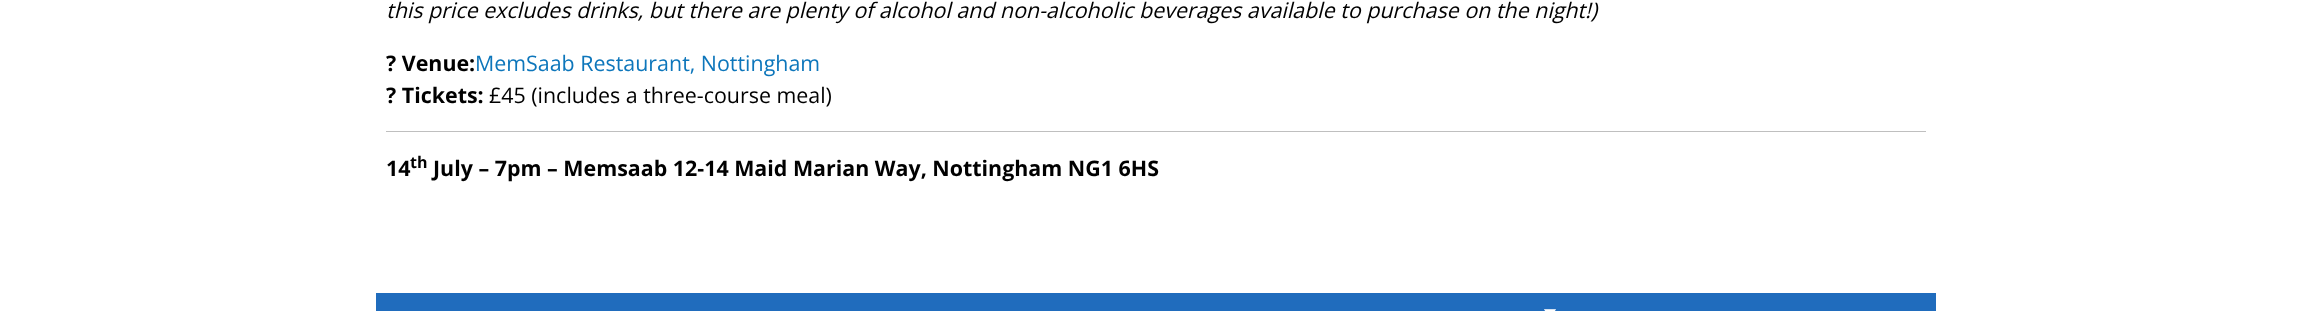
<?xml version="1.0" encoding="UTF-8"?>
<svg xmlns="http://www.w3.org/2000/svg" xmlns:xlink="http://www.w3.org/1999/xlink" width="2311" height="311">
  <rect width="100%" height="100%" fill="#ffffff" />
  <rect x="386" y="131" width="1540" height="1" fill="#bfbfbf" />
  <rect x="376" y="293" width="1560" height="18" fill="#206cbd" />
  <image x="1544" y="309" width="12" height="2" xlink:href="image1.png" />
  <text x="386" y="18" style="font-family: Open Sans; font-size: 21.42px; font-style: italic; fill: #000000">this price excludes drinks, but there are plenty of alcohol and non-alcoholic beverages available to purchase on the night!)</text>
  <text x="386" y="71" style="font-family: Open Sans; font-size: 21.42px; font-weight: bold; fill: #000000">? Venue:</text>
  <text x="475" y="71" style="font-family: Open Sans; font-size: 21.42px; fill: #0d76bb">MemSaab Restaurant, Nottingham</text>
  <text x="386" y="103" style="font-family: Open Sans; font-size: 21.42px; font-weight: bold; fill: #000000">?️ Tickets:</text>
  <text x="489" y="103" style="font-family: Open Sans; font-size: 21.42px; fill: #000000">£45 (includes a three-course meal)</text>
  <text x="386" y="176" style="font-family: Open Sans; font-size: 21.42px; font-weight: bold; fill: #000000">14</text>
  <text x="410" y="168" style="font-family: Open Sans; font-size: 16px; font-weight: bold; fill: #000000">th</text>
  <text x="433" y="176" style="font-family: Open Sans; font-size: 21.42px; font-weight: bold; fill: #000000">July – 7pm – Memsaab 12-14 Maid Marian Way, Nottingham NG1 6HS</text>
</svg>
